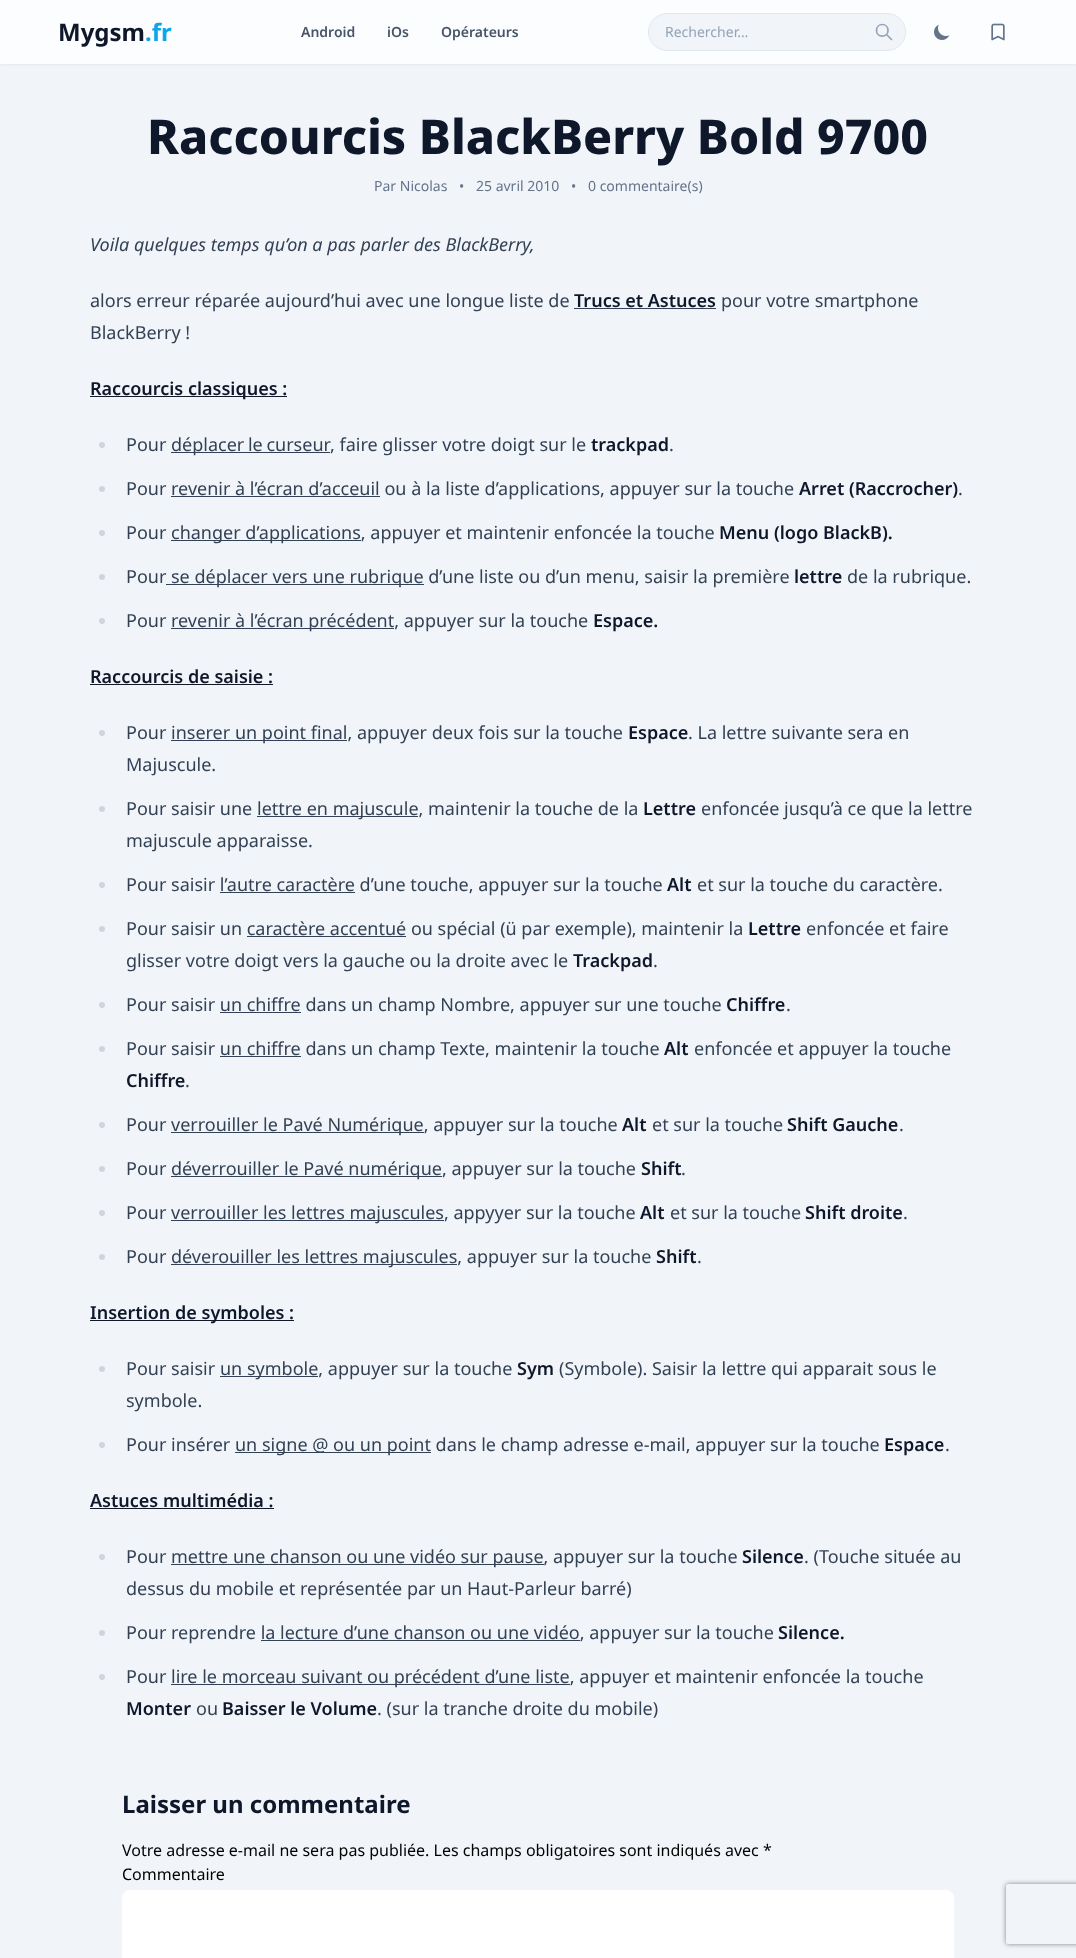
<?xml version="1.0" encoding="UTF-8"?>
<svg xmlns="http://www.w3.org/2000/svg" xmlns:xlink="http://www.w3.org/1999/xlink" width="1076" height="1958">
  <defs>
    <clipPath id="clip1"><path d="M 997 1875 h 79 v 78 h -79 z m 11 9 h 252 c 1 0 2 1 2 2 v 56 c 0 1 -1 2 -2 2 h -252 c -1 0 -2 -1 -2 -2 v -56 c 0 -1 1 -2 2 -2 z" clip-rule="evenodd" /></clipPath>
  </defs>
  <rect width="100%" height="100%" fill="#f1f5f9" />
  <rect y="1" width="1076" height="64" fill="#000000" fill-opacity="0.05" filter="blur(1px)" />
  <rect width="1076" height="64" fill="#fcfdfe" />
  <rect x="648.5" y="13.5" width="257" height="37" rx="18.5" fill="#f1f5f9" stroke="#e2e8f0" />
  <path d="M 891.5 39.5 l -5 -5 m 1.5 -4 c 0 7.5 -11.5 7.5 -11.5 0 c 0 -8 11.5 -8 11.5 0 z" fill="none" stroke="#94a3b8" stroke-width="1.7" stroke-linecap="round" stroke-linejoin="round" />
  <image x="934" y="24" width="16" height="16" xlink:href="image1.png" />
  <image x="991" y="23" width="14" height="18" xlink:href="image2.png" />
  <rect x="574" y="308" width="142" height="1" fill="#334155" />
  <rect x="90" y="396" width="197" height="1" fill="#111827" />
  <circle cx="102" cy="445" r="3" fill="#d1d5db" />
  <rect x="171" y="452" width="159" height="1" fill="#334155" />
  <circle cx="102" cy="489" r="3" fill="#d1d5db" />
  <rect x="171" y="496" width="209" height="1" fill="#334155" />
  <circle cx="102" cy="533" r="3" fill="#d1d5db" />
  <rect x="171" y="540" width="190" height="1" fill="#334155" />
  <circle cx="102" cy="577" r="3" fill="#d1d5db" />
  <rect x="166" y="584" width="258" height="1" fill="#334155" />
  <circle cx="102" cy="621" r="3" fill="#d1d5db" />
  <rect x="171" y="628" width="223" height="1" fill="#334155" />
  <rect x="90" y="684" width="183" height="1" fill="#111827" />
  <circle cx="102" cy="733" r="3" fill="#d1d5db" />
  <rect x="171" y="740" width="176" height="1" fill="#334155" />
  <circle cx="102" cy="809" r="3" fill="#d1d5db" />
  <rect x="257" y="816" width="161" height="1" fill="#334155" />
  <circle cx="102" cy="885" r="3" fill="#d1d5db" />
  <rect x="220" y="892" width="135" height="1" fill="#334155" />
  <circle cx="102" cy="929" r="3" fill="#d1d5db" />
  <rect x="247" y="936" width="159" height="1" fill="#334155" />
  <circle cx="102" cy="1005" r="3" fill="#d1d5db" />
  <rect x="220" y="1012" width="81" height="1" fill="#334155" />
  <circle cx="102" cy="1049" r="3" fill="#d1d5db" />
  <rect x="220" y="1056" width="81" height="1" fill="#334155" />
  <circle cx="102" cy="1125" r="3" fill="#d1d5db" />
  <rect x="171" y="1132" width="253" height="1" fill="#334155" />
  <circle cx="102" cy="1169" r="3" fill="#d1d5db" />
  <rect x="171" y="1176" width="271" height="1" fill="#334155" />
  <circle cx="102" cy="1213" r="3" fill="#d1d5db" />
  <rect x="171" y="1220" width="273" height="1" fill="#334155" />
  <circle cx="102" cy="1257" r="3" fill="#d1d5db" />
  <rect x="171" y="1264" width="286" height="1" fill="#334155" />
  <rect x="90" y="1320" width="204" height="1" fill="#111827" />
  <circle cx="102" cy="1369" r="3" fill="#d1d5db" />
  <rect x="220" y="1376" width="98" height="1" fill="#334155" />
  <circle cx="102" cy="1445" r="3" fill="#d1d5db" />
  <rect x="235" y="1452" width="196" height="1" fill="#334155" />
  <rect x="90" y="1508" width="184" height="1" fill="#111827" />
  <circle cx="102" cy="1557" r="3" fill="#d1d5db" />
  <rect x="171" y="1564" width="373" height="1" fill="#334155" />
  <circle cx="102" cy="1633" r="3" fill="#d1d5db" />
  <rect x="261" y="1640" width="319" height="1" fill="#334155" />
  <circle cx="102" cy="1677" r="3" fill="#d1d5db" />
  <rect x="171" y="1684" width="399" height="1" fill="#334155" />
  <rect x="122" y="1890" width="832" height="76" rx="8" fill="#ffffff" />
  <g clip-path="url(#clip1)">
    <rect x="1006" y="1884" width="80" height="60" rx="2" fill="#808080" filter="blur(2.5px)" />
  </g>
  <text x="58" y="41" style="font-family: Noto Sans; font-size: 24px; font-weight: bold; fill: #0f172a">Mygsm</text>
  <text x="145" y="41" style="font-family: Noto Sans; font-size: 24px; font-weight: bold; fill: #0ea5e9">.fr</text>
  <text x="301" y="37" style="font-family: Noto Sans; font-size: 14px; font-weight: 600; fill: #475569">Android</text>
  <text x="387" y="37" style="font-family: Noto Sans; font-size: 14px; font-weight: 600; fill: #475569">iOs</text>
  <text x="441" y="37" style="font-family: Noto Sans; font-size: 14px; font-weight: 600; fill: #475569">Opérateurs</text>
  <text x="665" y="37" style="font-family: Noto Sans; font-size: 14px; fill: #94a3b8">Rechercher…</text>
  <text x="147" y="154" style="font-family: Noto Sans; font-size: 48px; font-weight: 800; fill: #0f172a">Raccourcis BlackBerry Bold 9700</text>
  <text x="374" y="191" style="font-family: Noto Sans; font-size: 14px; fill: #64748b">Par Nicolas</text>
  <text x="459" y="191" style="font-family: Noto Sans; font-size: 14px; fill: #64748b">•</text>
  <text x="476" y="191" style="font-family: Noto Sans; font-size: 14px; fill: #64748b">25 avril 2010</text>
  <text x="571" y="191" style="font-family: Noto Sans; font-size: 14px; fill: #64748b">•</text>
  <text x="588" y="191" style="font-family: Noto Sans; font-size: 14px; fill: #64748b">0 commentaire(s)</text>
  <text x="90" y="251" style="font-family: Noto Sans; font-size: 18px; font-style: italic; fill: #334155">Voila quelques temps qu’on a pas parler des BlackBerry,</text>
  <text x="90" y="307" style="font-family: Noto Sans; font-size: 18px; fill: #334155">alors erreur réparée aujourd’hui avec une longue liste de</text>
  <text x="574" y="307" style="font-family: Noto Sans; font-size: 18px; font-weight: 600; fill: #0f172a">Trucs et Astuces</text>
  <text x="721" y="307" style="font-family: Noto Sans; font-size: 18px; fill: #334155">pour votre smartphone</text>
  <text x="90" y="339" style="font-family: Noto Sans; font-size: 18px; fill: #334155">BlackBerry !</text>
  <text x="90" y="395" style="font-family: Noto Sans; font-size: 18px; font-weight: 600; fill: #0f172a">Raccourcis classiques :</text>
  <text x="126" y="451" style="font-family: Noto Sans; font-size: 18px; fill: #334155">Pour</text>
  <text x="171" y="451" word-spacing="-1" style="font-family: Noto Sans; font-size: 18px; fill: #334155">déplacer le curseur</text>
  <text x="330" y="451" style="font-family: Noto Sans; font-size: 18px; fill: #334155">, faire glisser votre doigt sur le</text>
  <text x="591" y="451" style="font-family: Noto Sans; font-size: 18px; font-weight: 600; fill: #0f172a">trackpad</text>
  <text x="669" y="451" style="font-family: Noto Sans; font-size: 18px; fill: #334155">.</text>
  <text x="126" y="495" style="font-family: Noto Sans; font-size: 18px; fill: #334155">Pour revenir à l’écran d’acceuil ou à la liste d’applications, appuyer sur la touche</text>
  <text x="799" y="495" style="font-family: Noto Sans; font-size: 18px; font-weight: 600; fill: #0f172a">Arret (Raccrocher)</text>
  <text x="958" y="495" style="font-family: Noto Sans; font-size: 18px; fill: #334155">.</text>
  <text x="126" y="539" style="font-family: Noto Sans; font-size: 18px; fill: #334155">Pour</text>
  <text x="171" y="539" style="font-family: Noto Sans; font-size: 18px; fill: #334155">changer d’applications, appuyer et maintenir enfoncée la touche</text>
  <text x="719" y="539" style="font-family: Noto Sans; font-size: 18px; font-weight: 600; fill: #0f172a">Menu (logo BlackB).</text>
  <text x="126" y="583" style="font-family: Noto Sans; font-size: 18px; fill: #334155">Pour</text>
  <text x="171" y="583" style="font-family: Noto Sans; font-size: 18px; fill: #334155">se déplacer vers une rubrique d’une liste ou d’un menu, saisir la première</text>
  <text x="794" y="583" style="font-family: Noto Sans; font-size: 18px; font-weight: 600; fill: #0f172a">lettre</text>
  <text x="847" y="583" style="font-family: Noto Sans; font-size: 18px; fill: #334155">de la rubrique.</text>
  <text x="126" y="627" style="font-family: Noto Sans; font-size: 18px; fill: #334155">Pour</text>
  <text x="171" y="627" style="font-family: Noto Sans; font-size: 18px; fill: #334155">revenir à l’écran précédent, appuyer sur la touche</text>
  <text x="593" y="627" style="font-family: Noto Sans; font-size: 18px; font-weight: 600; fill: #0f172a">Espace.</text>
  <text x="90" y="683" style="font-family: Noto Sans; font-size: 18px; font-weight: 600; fill: #0f172a">Raccourcis de saisie :</text>
  <text x="126" y="739" style="font-family: Noto Sans; font-size: 18px; fill: #334155">Pour</text>
  <text x="171" y="739" style="font-family: Noto Sans; font-size: 18px; fill: #334155">inserer un point final, appuyer deux fois sur la touche</text>
  <text x="628" y="739" style="font-family: Noto Sans; font-size: 18px; font-weight: 600; fill: #0f172a">Espace</text>
  <text x="688" y="739" style="font-family: Noto Sans; font-size: 18px; fill: #334155">. La lettre suivante sera en</text>
  <text x="126" y="771" style="font-family: Noto Sans; font-size: 18px; fill: #334155">Majuscule.</text>
  <text x="126" y="815" style="font-family: Noto Sans; font-size: 18px; fill: #334155">Pour saisir une</text>
  <text x="257" y="815" style="font-family: Noto Sans; font-size: 18px; fill: #334155">lettre en majuscule, maintenir la touche de la</text>
  <text x="643" y="815" style="font-family: Noto Sans; font-size: 18px; font-weight: 600; fill: #0f172a">Lettre</text>
  <text x="701" y="815" style="font-family: Noto Sans; font-size: 18px; fill: #334155">enfoncée jusqu’à ce que la lettre</text>
  <text x="126" y="847" style="font-family: Noto Sans; font-size: 18px; fill: #334155">majuscule apparaisse.</text>
  <text x="126" y="891" style="font-family: Noto Sans; font-size: 18px; fill: #334155">Pour saisir l’autre caractère d’une touche, appuyer sur la touche</text>
  <text x="667" y="891" style="font-family: Noto Sans; font-size: 18px; font-weight: 600; fill: #0f172a">Alt</text>
  <text x="697" y="891" style="font-family: Noto Sans; font-size: 18px; fill: #334155">et sur la touche du caractère.</text>
  <text x="126" y="935" style="font-family: Noto Sans; font-size: 18px; fill: #334155">Pour saisir un caractère accentué ou spécial (ü par exemple), maintenir la</text>
  <text x="748" y="935" style="font-family: Noto Sans; font-size: 18px; font-weight: 600; fill: #0f172a">Lettre</text>
  <text x="806" y="935" style="font-family: Noto Sans; font-size: 18px; fill: #334155">enfoncée et faire</text>
  <text x="126" y="967" style="font-family: Noto Sans; font-size: 18px; fill: #334155">glisser votre doigt vers la gauche ou la droite avec le</text>
  <text x="573" y="967" style="font-family: Noto Sans; font-size: 18px; font-weight: 600; fill: #0f172a">Trackpad</text>
  <text x="653" y="967" style="font-family: Noto Sans; font-size: 18px; fill: #334155">.</text>
  <text x="126" y="1011" style="font-family: Noto Sans; font-size: 18px; fill: #334155">Pour saisir un chiffre dans un champ Nombre, appuyer sur une touche</text>
  <text x="726" y="1011" style="font-family: Noto Sans; font-size: 18px; font-weight: 600; fill: #0f172a">Chiffre</text>
  <text x="786" y="1011" style="font-family: Noto Sans; font-size: 18px; fill: #334155">.</text>
  <text x="126" y="1055" style="font-family: Noto Sans; font-size: 18px; fill: #334155">Pour saisir un chiffre dans un champ Texte, maintenir la touche</text>
  <text x="664" y="1055" style="font-family: Noto Sans; font-size: 18px; font-weight: 600; fill: #0f172a">Alt</text>
  <text x="694" y="1055" style="font-family: Noto Sans; font-size: 18px; fill: #334155">enfoncée et appuyer la touche</text>
  <text x="126" y="1087" style="font-family: Noto Sans; font-size: 18px; font-weight: 600; fill: #0f172a">Chiffre</text>
  <text x="185" y="1087" style="font-family: Noto Sans; font-size: 18px; fill: #334155">.</text>
  <text x="126" y="1131" style="font-family: Noto Sans; font-size: 18px; fill: #334155">Pour</text>
  <text x="171" y="1131" style="font-family: Noto Sans; font-size: 18px; fill: #334155">verrouiller le Pavé Numérique, appuyer sur la touche</text>
  <text x="622" y="1131" style="font-family: Noto Sans; font-size: 18px; font-weight: 600; fill: #0f172a">Alt</text>
  <text x="652" y="1131" style="font-family: Noto Sans; font-size: 18px; fill: #334155">et sur la touche</text>
  <text x="787" y="1131" style="font-family: Noto Sans; font-size: 18px; font-weight: 600; fill: #0f172a">Shift Gauche</text>
  <text x="899" y="1131" style="font-family: Noto Sans; font-size: 18px; fill: #334155">.</text>
  <text x="126" y="1175" style="font-family: Noto Sans; font-size: 18px; fill: #334155">Pour</text>
  <text x="171" y="1175" style="font-family: Noto Sans; font-size: 18px; fill: #334155">déverrouiller le Pavé numérique, appuyer sur la touche</text>
  <text x="641" y="1175" style="font-family: Noto Sans; font-size: 18px; font-weight: 600; fill: #0f172a">Shift</text>
  <text x="681" y="1175" style="font-family: Noto Sans; font-size: 18px; fill: #334155">.</text>
  <text x="126" y="1219" style="font-family: Noto Sans; font-size: 18px; fill: #334155">Pour</text>
  <text x="171" y="1219" style="font-family: Noto Sans; font-size: 18px; fill: #334155">verrouiller les lettres majuscules, appyyer sur la touche</text>
  <text x="640" y="1219" style="font-family: Noto Sans; font-size: 18px; font-weight: 600; fill: #0f172a">Alt</text>
  <text x="670" y="1219" style="font-family: Noto Sans; font-size: 18px; fill: #334155">et sur la touche</text>
  <text x="805" y="1219" style="font-family: Noto Sans; font-size: 18px; font-weight: 600; fill: #0f172a">Shift droite</text>
  <text x="903" y="1219" style="font-family: Noto Sans; font-size: 18px; fill: #334155">.</text>
  <text x="126" y="1263" style="font-family: Noto Sans; font-size: 18px; fill: #334155">Pour</text>
  <text x="171" y="1263" style="font-family: Noto Sans; font-size: 18px; fill: #334155">déverouiller les lettres majuscules, appuyer sur la touche</text>
  <text x="656" y="1263" style="font-family: Noto Sans; font-size: 18px; font-weight: 600; fill: #0f172a">Shift</text>
  <text x="697" y="1263" style="font-family: Noto Sans; font-size: 18px; fill: #334155">.</text>
  <text x="90" y="1319" style="font-family: Noto Sans; font-size: 18px; font-weight: 600; fill: #0f172a">Insertion de symboles :</text>
  <text x="126" y="1375" style="font-family: Noto Sans; font-size: 18px; fill: #334155">Pour saisir</text>
  <text x="220" y="1375" style="font-family: Noto Sans; font-size: 18px; fill: #334155">un symbole, appuyer sur la touche</text>
  <text x="517" y="1375" style="font-family: Noto Sans; font-size: 18px; font-weight: 600; fill: #0f172a">Sym</text>
  <text x="559" y="1375" style="font-family: Noto Sans; font-size: 18px; fill: #334155">(Symbole). Saisir la lettre qui apparait sous le</text>
  <text x="126" y="1407" style="font-family: Noto Sans; font-size: 18px; fill: #334155">symbole.</text>
  <text x="126" y="1451" style="font-family: Noto Sans; font-size: 18px; fill: #334155">Pour insérer</text>
  <text x="235" y="1451" style="font-family: Noto Sans; font-size: 18px; fill: #334155">un signe @ ou un point dans le champ adresse e-mail, appuyer sur la touche</text>
  <text x="884" y="1451" style="font-family: Noto Sans; font-size: 18px; font-weight: 600; fill: #0f172a">Espace</text>
  <text x="945" y="1451" style="font-family: Noto Sans; font-size: 18px; fill: #334155">.</text>
  <text x="90" y="1507" style="font-family: Noto Sans; font-size: 18px; font-weight: 600; fill: #0f172a">Astuces multimédia :</text>
  <text x="126" y="1563" style="font-family: Noto Sans; font-size: 18px; fill: #334155">Pour</text>
  <text x="171" y="1563" style="font-family: Noto Sans; font-size: 18px; fill: #334155">mettre une chanson ou une vidéo sur pause, appuyer sur la touche</text>
  <text x="742" y="1563" style="font-family: Noto Sans; font-size: 18px; font-weight: 600; fill: #0f172a">Silence</text>
  <text x="804" y="1563" style="font-family: Noto Sans; font-size: 18px; fill: #334155">. (Touche située au</text>
  <text x="126" y="1595" style="font-family: Noto Sans; font-size: 18px; fill: #334155">dessus du mobile et représentée par un Haut-Parleur barré)</text>
  <text x="126" y="1639" style="font-family: Noto Sans; font-size: 18px; fill: #334155">Pour reprendre la lecture d’une chanson ou une vidéo, appuyer sur la touche</text>
  <text x="778" y="1639" style="font-family: Noto Sans; font-size: 18px; font-weight: 600; fill: #0f172a">Silence.</text>
  <text x="126" y="1683" style="font-family: Noto Sans; font-size: 18px; fill: #334155">Pour</text>
  <text x="171" y="1683" style="font-family: Noto Sans; font-size: 18px; fill: #334155">lire le morceau suivant ou précédent d’une liste, appuyer et maintenir enfoncée la touche</text>
  <text x="126" y="1715" style="font-family: Noto Sans; font-size: 18px; font-weight: 600; fill: #0f172a">Monter</text>
  <text x="196" y="1715" style="font-family: Noto Sans; font-size: 18px; fill: #334155">ou</text>
  <text x="222" y="1715" style="font-family: Noto Sans; font-size: 18px; font-weight: 600; fill: #0f172a">Baisser le Volume</text>
  <text x="377" y="1715" style="font-family: Noto Sans; font-size: 18px; fill: #334155">. (sur la tranche droite du mobile)</text>
  <text x="122" y="1813" style="font-family: Noto Sans; font-size: 24px; font-weight: bold; fill: #0f172a">Laisser un commentaire</text>
  <text x="122" y="1856" style="font-family: Noto Sans; font-size: 16px; fill: #000000">Votre adresse e-mail ne sera pas publiée. Les champs obligatoires sont indiqués avec *</text>
  <text x="122" y="1880" style="font-family: Noto Sans; font-size: 16px; fill: #000000">Commentaire</text>
</svg>
